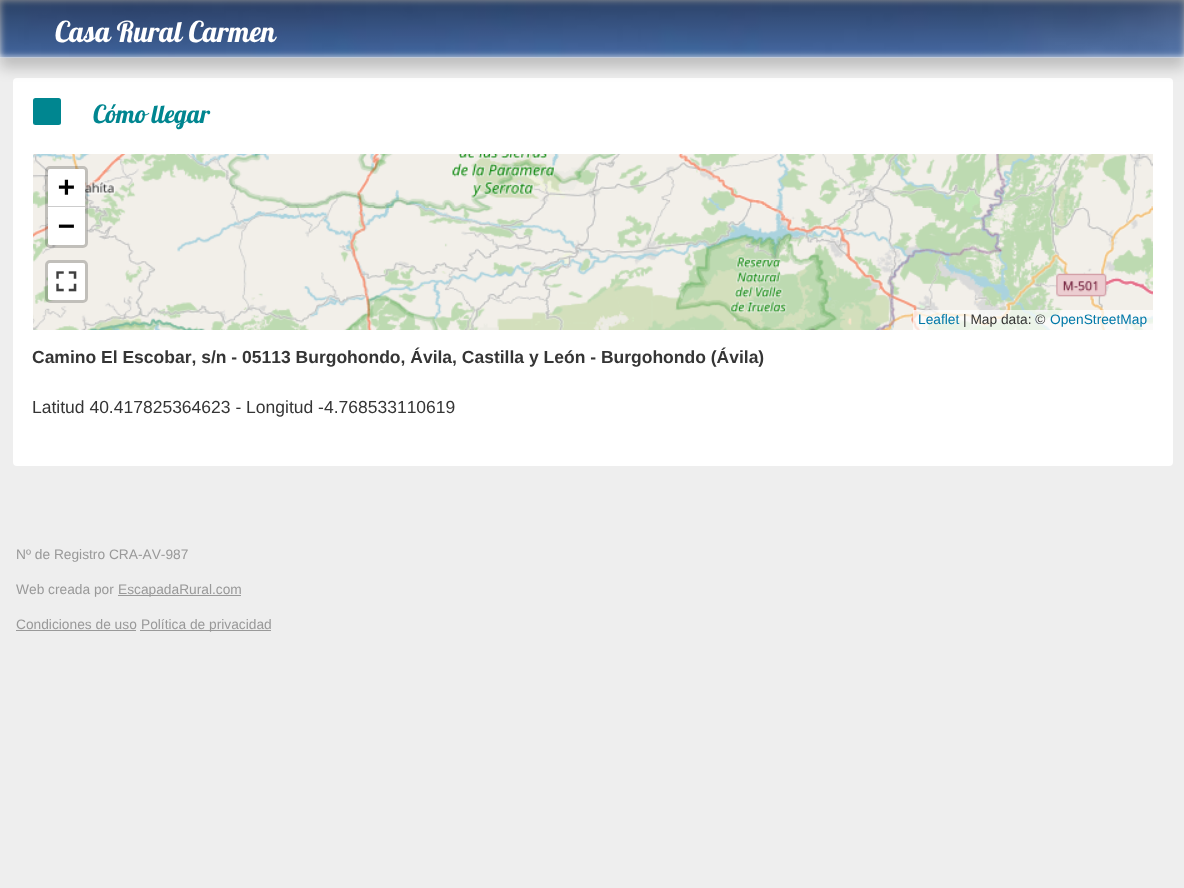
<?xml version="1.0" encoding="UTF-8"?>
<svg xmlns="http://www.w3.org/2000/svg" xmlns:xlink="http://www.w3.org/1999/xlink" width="1184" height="888">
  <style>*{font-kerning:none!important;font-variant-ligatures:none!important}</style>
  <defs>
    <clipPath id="clip1"><path d="M 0 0 h 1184 v 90 h -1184 z m 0 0 h 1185 v 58 h -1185 z" clip-rule="evenodd" /></clipPath>
    <linearGradient id="g1" gradientUnits="userSpaceOnUse" x1="593" y1="0" x2="593" y2="58"><stop offset="0" stop-color="#000000" stop-opacity="0.35" /><stop offset="1" stop-color="#000000" stop-opacity="0" /></linearGradient>
  </defs>
  <rect width="100%" height="100%" fill="#eeeeee" />
  <rect x="13" y="78" width="1160" height="388" rx="4" fill="#ffffff" />
  <g clip-path="url(#clip1)">
    <rect y="10" width="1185" height="58" fill="#000000" fill-opacity="0.2" filter="blur(7px)" />
  </g>
  <image x="0" y="0" width="1184" height="58" xlink:href="image1.png" />
  <rect width="1184" height="54" fill="url(#g1)" />
  <rect x="33" y="98" width="28" height="27" rx="2.5" fill="#008690" />
  <image x="33" y="154" width="101" height="54" xlink:href="image2.png" />
  <image x="134" y="154" width="320" height="54" xlink:href="image3.png" />
  <image x="454" y="154" width="320" height="54" xlink:href="image4.png" />
  <image x="773" y="154" width="321" height="54" xlink:href="image5.png" />
  <image x="1094" y="154" width="59" height="54" xlink:href="image6.png" />
  <image x="33" y="208" width="101" height="122" xlink:href="image7.png" />
  <image x="134" y="208" width="320" height="122" xlink:href="image8.png" />
  <image x="454" y="208" width="320" height="122" xlink:href="image9.png" />
  <image x="773" y="208" width="321" height="122" xlink:href="image10.png" />
  <image x="1093" y="208" width="60" height="122" xlink:href="image11.png" />
  <rect x="46.5" y="167.5" width="40" height="79" rx="3.5" fill="none" stroke="#000000" stroke-opacity="0.2" stroke-width="3" />
  <path d="M 50.5 169 h 32 c 1.5 0 2.5 1 2.5 2.5 v 36.5 h -37 v -36.5 c 0 -1.5 1 -2.5 2.5 -2.5 z" fill="#ffffff" />
  <rect x="48" y="206" width="37" height="1" fill="#cccccc" />
  <path d="M 48 208 h 37 v 34.5 c 0 1.5 -1 2.5 -2.5 2.5 h -32 c -1.5 0 -2.5 -1 -2.5 -2.5 z" fill="#ffffff" />
  <rect x="46.5" y="261.5" width="40" height="40" rx="3.5" fill="none" stroke="#000000" stroke-opacity="0.2" stroke-width="3" />
  <rect x="48" y="263" width="37" height="37" rx="2.5" fill="#ffffff" />
  <image x="56" y="271" width="21" height="21" xlink:href="image12.png" />
  <rect x="913" y="310" width="240" height="20" fill="#ffffff" fill-opacity="0.7" />
  <rect x="118" y="595" width="123" height="1" fill="#999999" />
  <rect x="16" y="630" width="120" height="1" fill="#999999" />
  <rect x="140" y="630" width="131" height="1" fill="#999999" />
  <text x="55" y="42" style="font-family: Lobster; font-size: 28.75px; fill: #ffffff">Casa Rural Carmen</text>
  <text x="93" y="123" style="font-family: Lobster; font-size: 25px; fill: #008690">Cómo llegar</text>
  <text x="58" y="196" style="font-family: DejaVu Sans Mono; font-size: 28px; font-weight: bold; fill: #000000">+</text>
  <text x="58" y="235" style="font-family: DejaVu Sans Mono; font-size: 28px; font-weight: bold; fill: #000000">−</text>
  <text x="918" y="324" style="font-family: Liberation Sans; font-size: 13.75px; fill: #0078a8">Leaflet</text>
  <text x="963" y="324" style="font-family: Liberation Sans; font-size: 13.75px; fill: #353535">| Map data: ©</text>
  <text x="1050" y="324" style="font-family: Liberation Sans; font-size: 13.75px; fill: #0078a8">OpenStreetMap</text>
  <text x="32" y="363" style="font-family: Liberation Sans; font-size: 17.5px; font-weight: bold; fill: #353535">Camino El Escobar, s/n - 05113 Burgohondo, Ávila, Castilla y León - Burgohondo (Ávila)</text>
  <text x="32" y="413" style="font-family: Liberation Sans; font-size: 17.5px; fill: #353535">Latitud 40.417825364623 - Longitud -4.768533110619</text>
  <text x="16" y="559" style="font-family: Liberation Sans; font-size: 13.75px; fill: #999999">Nº de Registro CRA-AV-987</text>
  <text x="16" y="594" style="font-family: Liberation Sans; font-size: 13.75px; fill: #999999">Web creada por</text>
  <text x="118" y="594" style="font-family: Liberation Sans; font-size: 13.75px; fill: #999999">EscapadaRural.com</text>
  <text x="16" y="629" style="font-family: Liberation Sans; font-size: 13.75px; fill: #999999">Condiciones de uso</text>
  <text x="141" y="629" style="font-family: Liberation Sans; font-size: 13.75px; fill: #999999">Política de privacidad</text>
</svg>
